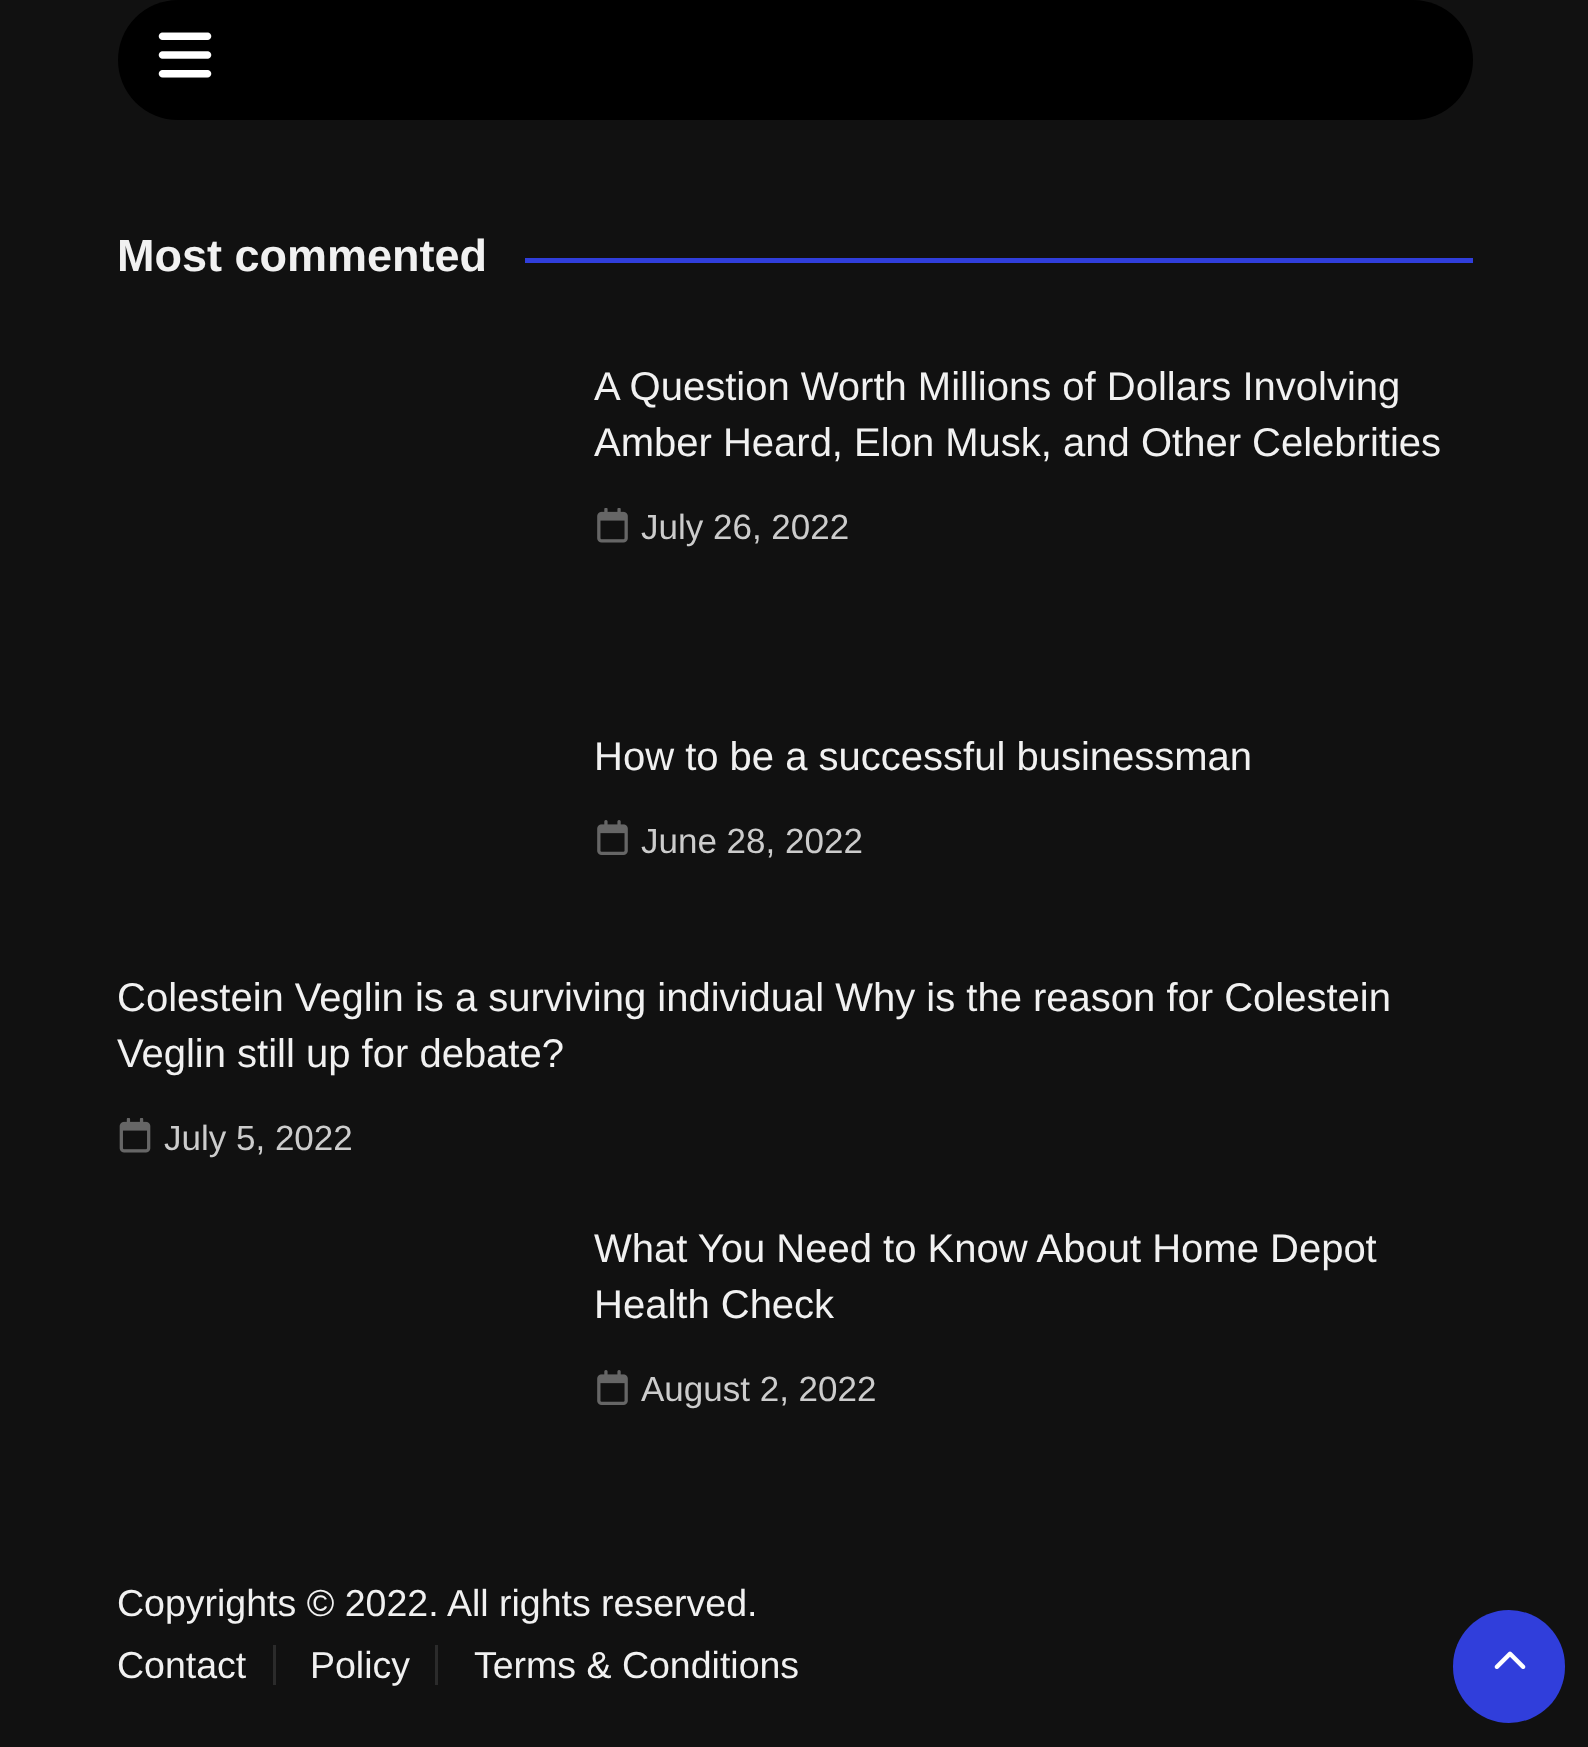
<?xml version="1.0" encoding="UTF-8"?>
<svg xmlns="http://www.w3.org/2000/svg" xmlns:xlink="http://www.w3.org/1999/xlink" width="1588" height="1747">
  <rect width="100%" height="100%" fill="#111111" />
  <rect x="118" width="1355" height="120" rx="60" fill="#000000" />
  <image x="158" y="32" width="54" height="46" xlink:href="image1.png" />
  <rect x="525" y="258" width="948" height="5" fill="#303edb" />
  <image x="597" y="508" width="31" height="35" xlink:href="image2.png" />
  <image x="597" y="820" width="31" height="35" xlink:href="image3.png" />
  <image x="119" y="1118" width="32" height="35" xlink:href="image4.png" />
  <image x="597" y="1370" width="31" height="35" xlink:href="image3.png" />
  <rect x="273" y="1645" width="3" height="40" fill="#2b2b2b" />
  <rect x="435" y="1645" width="3" height="40" fill="#2b2b2b" />
  <rect x="1453" y="1610" width="112" height="113" rx="56" fill="#303edb" />
  <image x="1494" y="1651" width="32" height="18" xlink:href="image5.png" />
  <text x="117" y="271" style="font-family: Liberation Sans; font-size: 45px; font-weight: bold; fill: #f1f1f1">Most commented</text>
  <text x="594" y="400" style="font-family: Liberation Sans; font-size: 40px; fill: #f1f1f1">A Question Worth Millions of Dollars Involving</text>
  <text x="594" y="456" style="font-family: Liberation Sans; font-size: 40px; fill: #f1f1f1">Amber Heard, Elon Musk, and Other Celebrities</text>
  <text x="641" y="539" style="font-family: Liberation Sans; font-size: 35px; fill: #cccccc">July 26, 2022</text>
  <text x="594" y="770" style="font-family: Liberation Sans; font-size: 40px; fill: #f1f1f1">How to be a successful businessman</text>
  <text x="641" y="853" style="font-family: Liberation Sans; font-size: 35px; fill: #cccccc">June 28, 2022</text>
  <text x="117" y="1011" style="font-family: Liberation Sans; font-size: 40px; fill: #f1f1f1">Colestein Veglin is a surviving individual Why is the reason for Colestein</text>
  <text x="117" y="1067" style="font-family: Liberation Sans; font-size: 40px; fill: #f1f1f1">Veglin still up for debate?</text>
  <text x="164" y="1150" style="font-family: Liberation Sans; font-size: 35px; fill: #cccccc">July 5, 2022</text>
  <text x="594" y="1262" style="font-family: Liberation Sans; font-size: 40px; fill: #f1f1f1">What You Need to Know About Home Depot</text>
  <text x="594" y="1318" style="font-family: Liberation Sans; font-size: 40px; fill: #f1f1f1">Health Check</text>
  <text x="641" y="1401" style="font-family: Liberation Sans; font-size: 35px; fill: #cccccc">August 2, 2022</text>
  <text x="117" y="1616" style="font-family: Liberation Sans; font-size: 37.5px; fill: #f1f1f1">Copyrights © 2022. All rights reserved.</text>
  <text x="117" y="1678" style="font-family: Liberation Sans; font-size: 37.5px; fill: #f1f1f1">Contact</text>
  <text x="310" y="1678" style="font-family: Liberation Sans; font-size: 37.5px; fill: #f1f1f1">Policy</text>
  <text x="474" y="1678" style="font-family: Liberation Sans; font-size: 37.5px; fill: #f1f1f1">Terms &amp; Conditions</text>
</svg>
